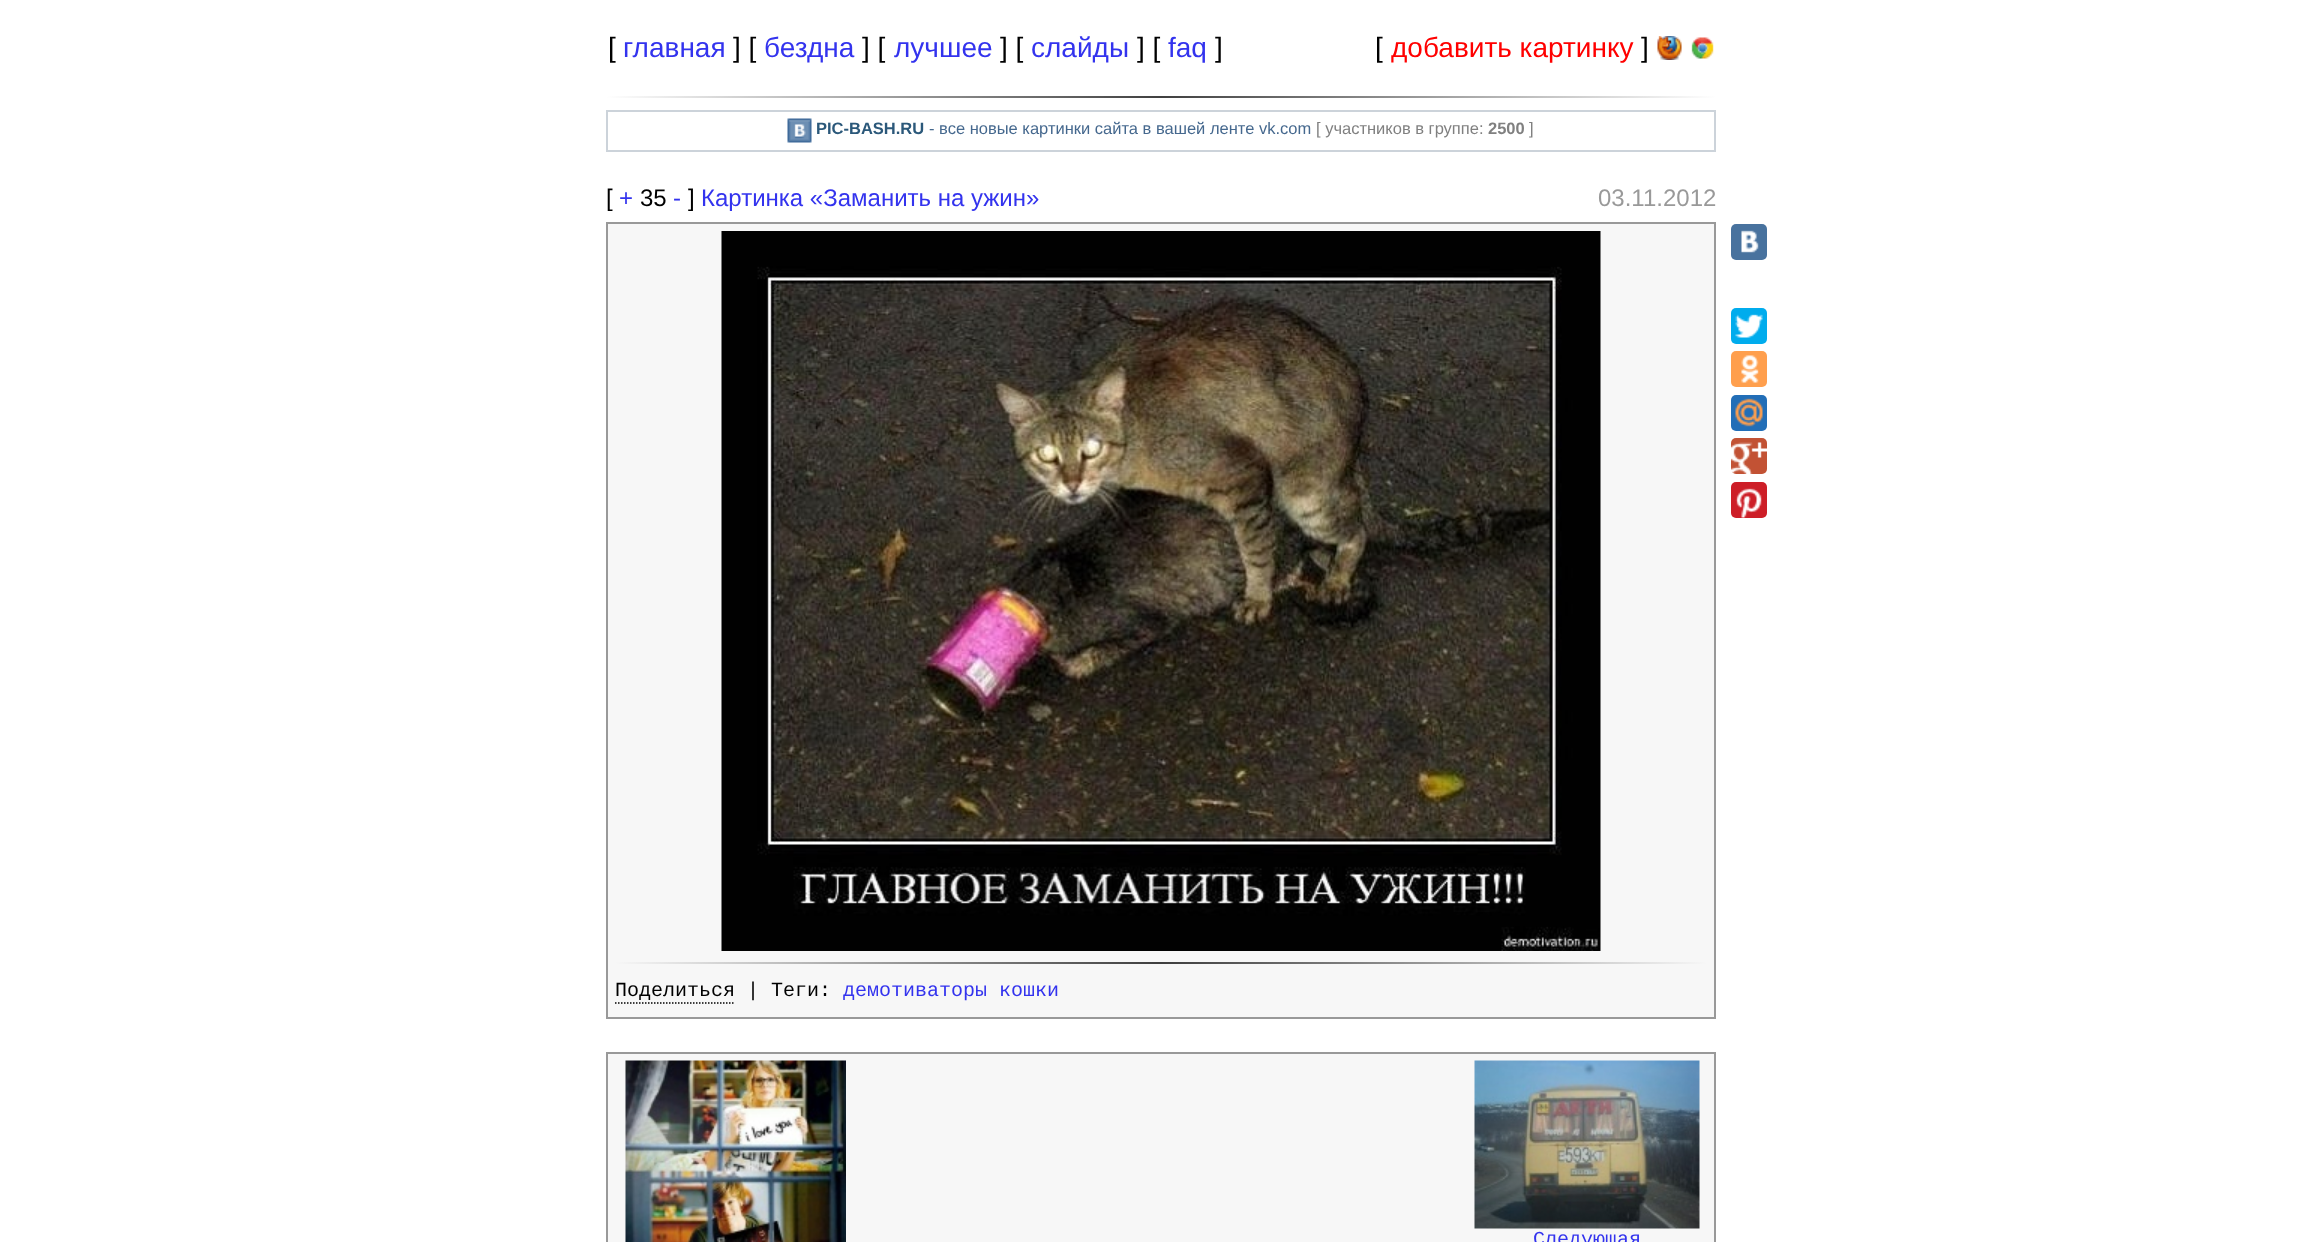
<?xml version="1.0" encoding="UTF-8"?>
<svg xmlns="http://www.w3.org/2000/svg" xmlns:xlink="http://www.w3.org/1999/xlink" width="2322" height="1242">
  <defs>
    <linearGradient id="g1" gradientUnits="userSpaceOnUse" x1="606" y1="97" x2="1716" y2="97"><stop offset="0" stop-color="#ffffff" /><stop offset="0.5" stop-color="#404040" /><stop offset="1" stop-color="#ffffff" /></linearGradient>
    <linearGradient id="g2" gradientUnits="userSpaceOnUse" x1="615" y1="962" x2="1707" y2="962"><stop offset="0" stop-color="#f7f7f7" /><stop offset="0.5" stop-color="#3e3e3e" /><stop offset="1" stop-color="#f7f7f7" /></linearGradient>
  </defs>
  <rect width="100%" height="100%" fill="#ffffff" />
  <image x="1657" y="36" width="25" height="24" xlink:href="image1.png" />
  <image x="1691" y="37" width="23" height="22" xlink:href="image2.png" />
  <rect x="606" y="96" width="1110" height="2" fill="url(#g1)" />
  <rect x="607" y="111" width="1108" height="40" fill="none" stroke="#ccd3da" stroke-width="2" />
  <image x="787" y="118" width="25" height="25" xlink:href="image3.png" />
  <rect x="1731" y="224" width="36" height="36" rx="5" fill="#48729e" />
  <image x="1741" y="230" width="18" height="23" xlink:href="image4.png" />
  <rect x="1731" y="308" width="36" height="36" rx="5" fill="#00aced" />
  <image x="1735" y="314" width="28" height="24" xlink:href="image5.png" />
  <rect x="1731" y="351" width="36" height="36" rx="5" fill="#ff9f4d" />
  <image x="1741" y="355" width="18" height="28" xlink:href="image6.png" />
  <rect x="1731" y="395" width="36" height="36" rx="5" fill="#226eb7" />
  <image x="1735" y="398" width="28" height="29" xlink:href="image7.png" />
  <rect x="1731" y="438" width="36" height="36" rx="5" fill="#c25234" />
  <image x="1731" y="442" width="36" height="32" xlink:href="image8.png" />
  <rect x="1731" y="482" width="36" height="36" rx="5" fill="#cd1e27" />
  <image x="1735" y="488" width="27" height="30" xlink:href="image9.png" />
  <rect x="607" y="223" width="1108" height="795" fill="#f7f7f7" stroke="#999999" stroke-width="2" />
  <image x="721" y="231" width="880" height="720" xlink:href="image10.png" />
  <rect x="615" y="962" width="1092" height="2" fill="url(#g2)" />
  <path d="M 615 1003 h 120" fill="none" stroke="#000000" stroke-width="1.5" stroke-dasharray="1.5 1.5" />
  <rect x="607" y="1053" width="1108" height="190" fill="#f7f7f7" stroke="#999999" stroke-width="2" />
  <image x="625" y="1060" width="221" height="182" xlink:href="image11.png" />
  <image x="1474" y="1060" width="226" height="169" xlink:href="image12.png" />
  <text x="608" y="57" style="font-family: Liberation Sans; font-size: 28px; fill: #000000">[</text>
  <text x="623" y="57" style="font-family: Liberation Sans; font-size: 28px; fill: #3333ee">главная</text>
  <text x="733" y="57" style="font-family: Liberation Sans; font-size: 28px; fill: #000000">] [</text>
  <text x="764" y="57" style="font-family: Liberation Sans; font-size: 28px; fill: #3333ee">бездна</text>
  <text x="862" y="57" style="font-family: Liberation Sans; font-size: 28px; fill: #000000">] [</text>
  <text x="894" y="57" style="font-family: Liberation Sans; font-size: 28px; fill: #3333ee">лучшее</text>
  <text x="1000" y="57" style="font-family: Liberation Sans; font-size: 28px; fill: #000000">] [</text>
  <text x="1031" y="57" style="font-family: Liberation Sans; font-size: 28px; fill: #3333ee">слайды</text>
  <text x="1137" y="57" style="font-family: Liberation Sans; font-size: 28px; fill: #000000">] [</text>
  <text x="1168" y="57" style="font-family: Liberation Sans; font-size: 28px; fill: #3333ee">faq</text>
  <text x="1215" y="57" style="font-family: Liberation Sans; font-size: 28px; fill: #000000">]</text>
  <text x="1375" y="57" style="font-family: Liberation Sans; font-size: 28px; fill: #000000">[</text>
  <text x="1391" y="57" style="font-family: Liberation Sans; font-size: 28px; fill: #ff0000">добавить картинку</text>
  <text x="1641" y="57" style="font-family: Liberation Sans; font-size: 28px; fill: #000000">]</text>
  <text x="816" y="134" style="font-family: Liberation Sans; font-size: 16.5px; font-weight: bold; fill: #2b587a">PIC-BASH.RU</text>
  <text x="929" y="134" style="font-family: Liberation Sans; font-size: 16.5px; fill: #45688e">- все новые картинки сайта в вашей ленте vk.com</text>
  <text x="1316" y="134" style="font-family: Liberation Sans; font-size: 16.5px; fill: #808080">[ участников в группе:</text>
  <text x="1488" y="134" style="font-family: Liberation Sans; font-size: 16.5px; font-weight: bold; fill: #808080">2500</text>
  <text x="1529" y="134" style="font-family: Liberation Sans; font-size: 16.5px; fill: #808080">]</text>
  <text x="606" y="206" style="font-family: Liberation Sans; font-size: 24px; fill: #000000">[</text>
  <text x="619" y="206" style="font-family: Liberation Sans; font-size: 24px; fill: #3333ee">+</text>
  <text x="640" y="206" style="font-family: Liberation Sans; font-size: 24px; fill: #000000">35</text>
  <text x="673" y="206" style="font-family: Liberation Sans; font-size: 24px; fill: #3333ee">-</text>
  <text x="688" y="206" style="font-family: Liberation Sans; font-size: 24px; fill: #000000">]</text>
  <text x="701" y="206" style="font-family: Liberation Sans; font-size: 24px; fill: #3333ee">Картинка «Заманить на ужин»</text>
  <text x="1598" y="206" style="font-family: Liberation Sans; font-size: 24px; fill: #999999">03.11.2012</text>
  <text x="615" y="996" style="font-family: Liberation Mono; font-size: 20px; fill: #000000">Поделиться</text>
  <text x="747" y="996" style="font-family: Liberation Mono; font-size: 20px; fill: #000000">| Теги:</text>
  <text x="843" y="996" style="font-family: Liberation Mono; font-size: 20px; fill: #3333ee">демотиваторы кошки</text>
  <text x="1533" y="1245" style="font-family: Liberation Mono; font-size: 20px; fill: #3333ee">Следующая</text>
</svg>
